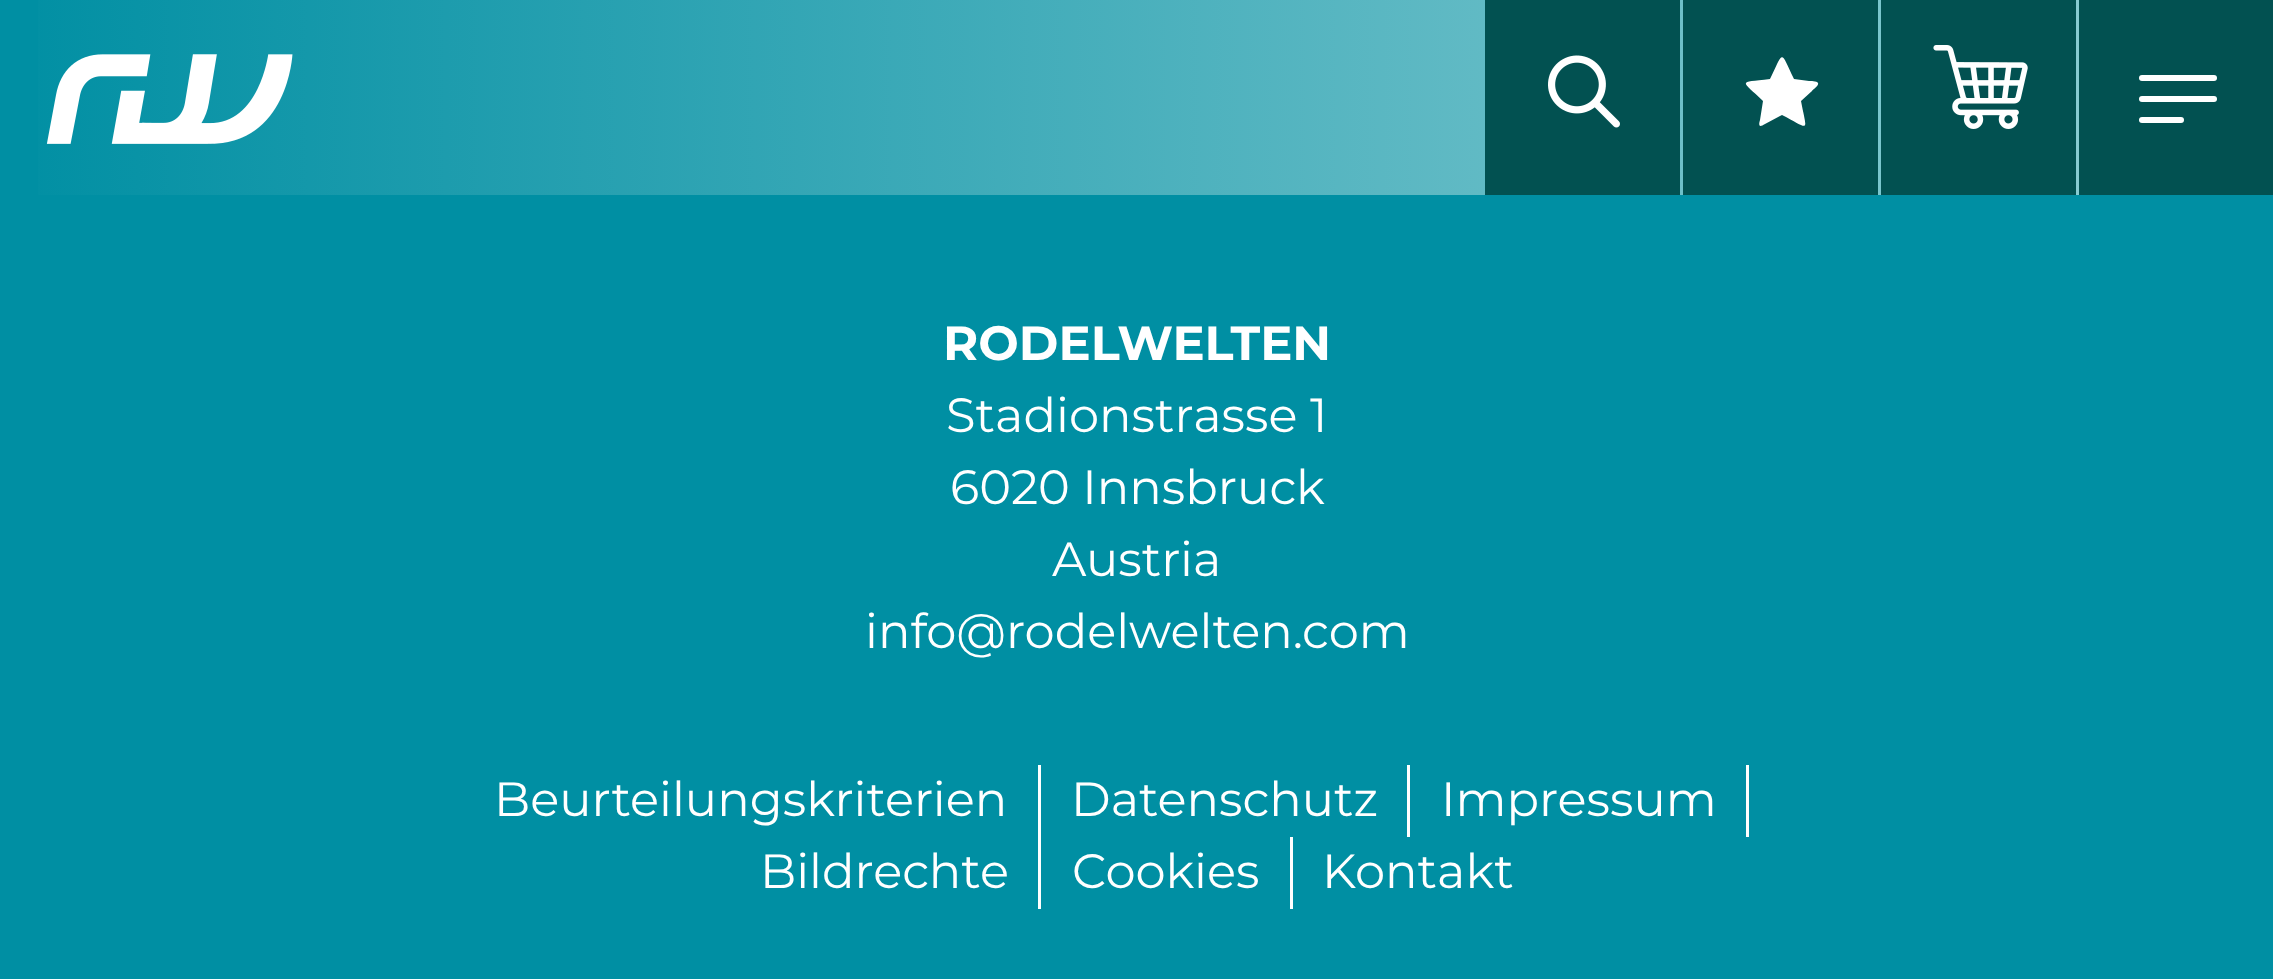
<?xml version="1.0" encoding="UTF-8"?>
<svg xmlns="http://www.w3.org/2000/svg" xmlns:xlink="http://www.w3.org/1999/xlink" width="2273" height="979">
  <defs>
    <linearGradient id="g1" gradientUnits="userSpaceOnUse" x1="0" y1="98" x2="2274" y2="97"><stop offset="0" stop-color="#008fa3" /><stop offset="1" stop-color="#94d1d6" /></linearGradient>
  </defs>
  <rect width="100%" height="100%" fill="#008fa3" />
  <rect x="38" width="2041" height="195" fill="url(#g1)" />
  <image x="46" y="54" width="247" height="90" xlink:href="image1.png" />
  <rect x="1485" width="195" height="195" fill="#025151" />
  <image x="1548" y="55" width="72" height="73" xlink:href="image2.png" />
  <rect x="1683" width="195" height="195" fill="#025151" />
  <path d="M 1818 83 c -1 -2 -8 -2 -9 -2 l -15 -2 c -14 -29 -10 -29 -24 0 c -32 4 -30 0 -7 22 l -3 19 c -2 7 0 7 5 4 l 17 -9 c 29 15 25 18 19 -14 l 11 -10 c 1 -2 7 -5 6 -8 z" fill="#ffffff" />
  <rect x="1881" width="195" height="195" fill="#025151" />
  <image x="1933" y="45" width="95" height="84" xlink:href="image3.png" />
  <rect x="2079" width="194" height="195" fill="#025151" />
  <rect x="2139" y="75" width="78" height="6" rx="3" fill="#ffffff" />
  <rect x="2139" y="96" width="78" height="6" rx="3" fill="#ffffff" />
  <rect x="2139" y="117" width="45" height="6" rx="3" fill="#ffffff" />
  <rect x="1038" y="765" width="3" height="144" fill="#ffffff" />
  <rect x="1407" y="765" width="3" height="72" fill="#ffffff" />
  <rect x="1746" y="765" width="3" height="72" fill="#ffffff" />
  <rect x="1290" y="837" width="3" height="72" fill="#ffffff" />
  <text x="943" y="360" style="font-family: Montserrat; font-size: 48px; font-weight: bold; fill: #ffffff">RODELWELTEN</text>
  <text x="946" y="432" style="font-family: Montserrat; font-size: 48px; fill: #ffffff">Stadionstrasse 1</text>
  <text x="950" y="504" style="font-family: Montserrat; font-size: 48px; fill: #ffffff">6020 Innsbruck</text>
  <text x="1052" y="576" style="font-family: Montserrat; font-size: 48px; fill: #ffffff">Austria</text>
  <text x="865" y="648" style="font-family: Montserrat; font-size: 48px; fill: #ffffff">info@rodelwelten.com</text>
  <text x="494" y="816" style="font-family: Montserrat; font-size: 48px; fill: #ffffff">Beurteilungskriterien</text>
  <text x="1071" y="816" style="font-family: Montserrat; font-size: 48px; fill: #ffffff">Datenschutz</text>
  <text x="1441" y="816" style="font-family: Montserrat; font-size: 48px; fill: #ffffff">Impressum</text>
  <text x="760" y="888" style="font-family: Montserrat; font-size: 48px; fill: #ffffff">Bildrechte</text>
  <text x="1072" y="888" style="font-family: Montserrat; font-size: 48px; fill: #ffffff">Cookies</text>
  <text x="1322" y="888" style="font-family: Montserrat; font-size: 48px; fill: #ffffff">Kontakt</text>
</svg>
